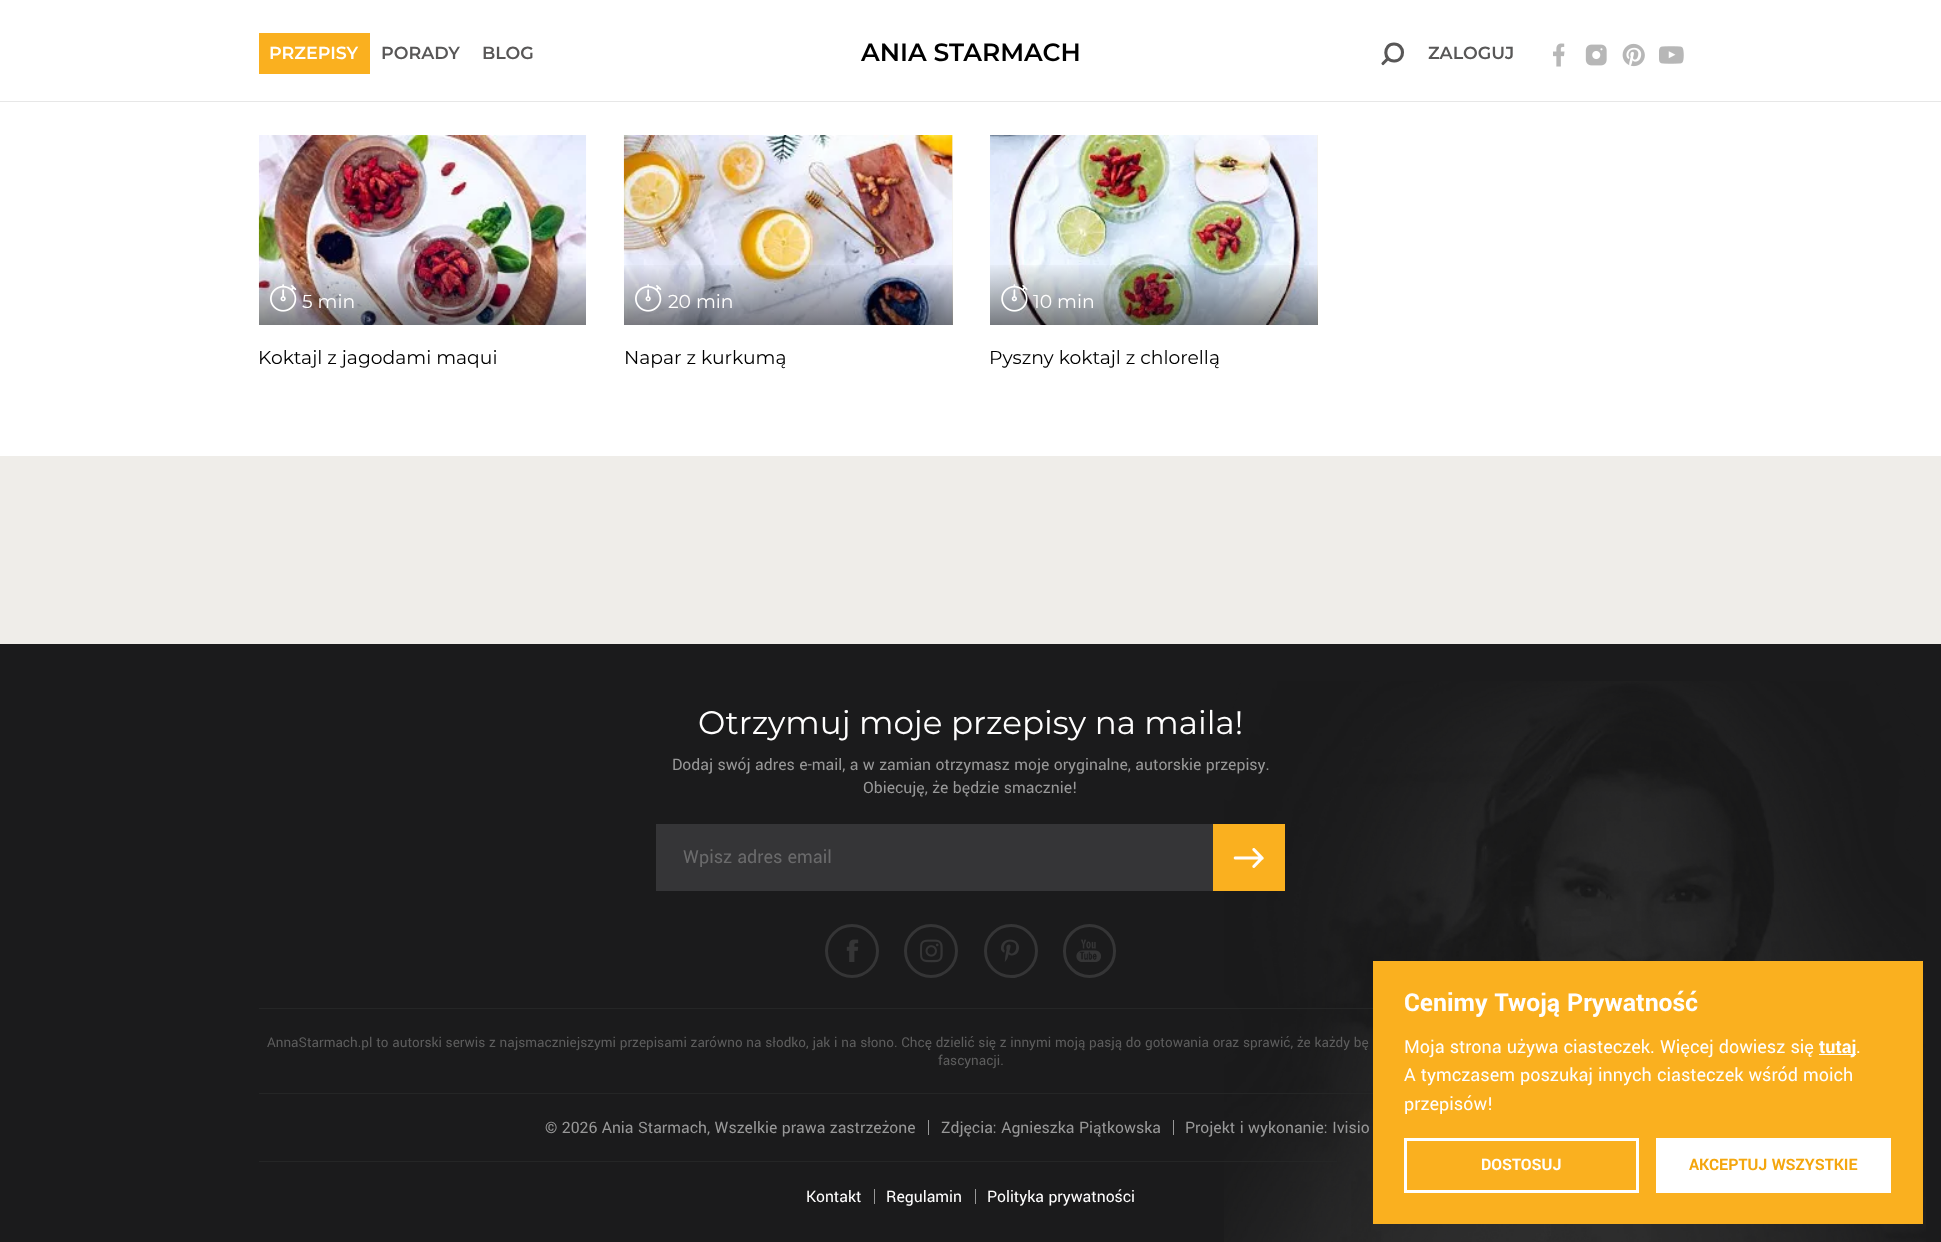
<?xml version="1.0" encoding="UTF-8"?>
<svg xmlns="http://www.w3.org/2000/svg" xmlns:xlink="http://www.w3.org/1999/xlink" width="1941" height="1242">
  <defs>
    <linearGradient id="g1" gradientUnits="userSpaceOnUse" x1="788" y1="262" x2="788" y2="325"><stop offset="0" stop-color="#000000" stop-opacity="0" /><stop offset="1" stop-color="#000000" stop-opacity="0.5" /></linearGradient>
    <linearGradient id="g2" gradientUnits="userSpaceOnUse" x1="1154" y1="262" x2="1154" y2="325"><stop offset="0" stop-color="#000000" stop-opacity="0" /><stop offset="1" stop-color="#000000" stop-opacity="0.5" /></linearGradient>
  </defs>
  <rect width="100%" height="100%" fill="#ffffff" />
  <rect y="101" width="1941" height="1" fill="#e7e7e7" />
  <rect x="259" y="33" width="111" height="41" fill="#fab01f" />
  <path d="M 1388 58.5 l -5 5 m 11 -19.5 c 11 0 11.5 16.5 0.5 17 c -11.5 0.5 -11.5 -17 -0.5 -17 z" fill="none" stroke="#585757" stroke-width="3.1" stroke-linecap="round" stroke-linejoin="round" />
  <image x="1553" y="43" width="12" height="24" xlink:href="image1.png" />
  <image x="1585" y="44" width="22" height="22" xlink:href="image2.png" />
  <image x="1622" y="43" width="23" height="24" xlink:href="image3.png" />
  <image x="1659" y="46" width="25" height="18" xlink:href="image4.png" />
  <image x="258" y="135" width="329" height="190" xlink:href="image5.png" />
  <image x="270" y="284" width="27" height="28" xlink:href="image6.png" />
  <rect x="952" y="135" width="1" height="190" fill="#f5f3eb" />
  <image x="623" y="135" width="330" height="190" xlink:href="image7.png" />
  <rect x="624" y="265" width="329" height="60" fill="url(#g1)" />
  <image x="635" y="284" width="27" height="28" xlink:href="image8.png" />
  <rect x="1317" y="135" width="1" height="190" fill="#f5f3eb" />
  <image x="990" y="135" width="328" height="190" xlink:href="image9.png" />
  <rect x="990" y="265" width="328" height="60" fill="url(#g2)" />
  <image x="1001" y="284" width="27" height="28" xlink:href="image10.png" />
  <rect y="644" width="1941" height="598" fill="#1b1b1c" />
  <rect y="456" width="1941" height="188" fill="#efede9" />
  <rect x="656" y="824" width="557" height="67" fill="#353537" />
  <image x="1224" y="681" width="702" height="561" xlink:href="image16.png" />
  <rect x="1213" y="824" width="72" height="67" fill="#fab01f" />
  <image x="1233" y="848" width="31" height="20" xlink:href="image11.png" />
  <circle cx="852" cy="951" r="25.5" fill="none" stroke="#353536" stroke-width="3" />
  <image x="846" y="939" width="13" height="23" xlink:href="image12.png" />
  <circle cx="931" cy="951" r="25.5" fill="none" stroke="#353536" stroke-width="3" />
  <image x="920" y="939" width="23" height="24" xlink:href="image13.png" />
  <circle cx="1011" cy="951" r="25.5" fill="none" stroke="#353536" stroke-width="3" />
  <image x="1001" y="939" width="18" height="23" xlink:href="image14.png" />
  <rect x="1064.5" y="925.5" width="50" height="51" rx="25" fill="none" stroke="#353536" stroke-width="3" />
  <image x="1076" y="939" width="25" height="23" xlink:href="image15.png" />
  <rect x="259" y="1008" width="1114" height="1" fill="#252626" />
  <rect x="259" y="1093" width="1114" height="1" fill="#252626" />
  <rect x="259" y="1161" width="1078" height="1" fill="#252626" />
  <rect x="928" y="1120" width="1" height="15" fill="#989898" />
  <rect x="1173" y="1120" width="1" height="15" fill="#989898" />
  <rect x="874" y="1189" width="1" height="15" fill="#989898" />
  <rect x="975" y="1189" width="1" height="15" fill="#989898" />
  <rect x="1373" y="961" width="550" height="263" fill="#fab01f" />
  <rect x="1819" y="1054" width="37" height="1" fill="#ffffff" />
  <rect x="1405.5" y="1139.5" width="232" height="52" fill="none" stroke="#ffffff" stroke-width="3" />
  <rect x="1656" y="1138" width="235" height="55" fill="#ffffff" />
  <text x="861" y="61" style="font-family: Montserrat; font-size: 25px; font-weight: 600; fill: #000000">ANIA STARMACH</text>
  <text x="269" y="59" style="font-family: Montserrat; font-size: 17.5px; font-weight: 600; fill: #fffefe">PRZEPISY</text>
  <text x="381" y="59" style="font-family: Montserrat; font-size: 17.5px; font-weight: 600; fill: #585757">PORADY</text>
  <text x="482" y="59" style="font-family: Montserrat; font-size: 17.5px; font-weight: 600; fill: #585757">BLOG</text>
  <text x="1428" y="59" style="font-family: Montserrat; font-size: 17.5px; font-weight: 600; fill: #585757">ZALOGUJ</text>
  <text x="302" y="308" style="font-family: Montserrat; font-size: 18.75px; fill: #fffefe">5 min</text>
  <text x="258" y="364" style="font-family: Montserrat; font-size: 18.75px; fill: #000000">Koktajl z jagodami maqui</text>
  <text x="668" y="308" style="font-family: Montserrat; font-size: 18.75px; fill: #fffefe">20 min</text>
  <text x="624" y="364" style="font-family: Montserrat; font-size: 18.75px; fill: #000000">Napar z kurkumą</text>
  <text x="1033" y="308" style="font-family: Montserrat; font-size: 18.75px; fill: #fffefe">10 min</text>
  <text x="989" y="364" style="font-family: Montserrat; font-size: 18.75px; fill: #000000">Pyszny koktajl z chlorellą</text>
  <text x="698" y="734" style="font-family: Montserrat; font-size: 32.5px; fill: #fffefe">Otrzymuj moje przepisy na maila!</text>
  <text x="672" y="770" style="font-family: Yantramanav; font-size: 17.5px; fill: #989898">Dodaj swój adres e-mail, a w zamian otrzymasz moje oryginalne, autorskie przepisy.</text>
  <text x="863" y="793" style="font-family: Yantramanav; font-size: 17.5px; fill: #989898">Obiecuję, że będzie smacznie!</text>
  <text x="683" y="863" style="font-family: Yantramanav; font-size: 20px; fill: #6a6a6b">Wpisz adres email</text>
  <text x="267" y="1047" style="font-family: Yantramanav; font-size: 15px; fill: #5d5d5d">AnnaStarmach.pl to autorski serwis z najsmaczniejszymi przepisami zarówno na słodko, jak i na słono. Chcę dzielić się z innymi moją pasją do gotowania oraz sprawić, że każdy bę</text>
  <text x="938" y="1065" style="font-family: Yantramanav; font-size: 15px; fill: #5d5d5d">fascynacji.</text>
  <text x="545" y="1133" style="font-family: Yantramanav; font-size: 17.5px; fill: #989898">© 2026 Ania Starmach, Wszelkie prawa zastrzeżone</text>
  <text x="941" y="1133" style="font-family: Yantramanav; font-size: 17.5px; fill: #989898">Zdjęcia: Agnieszka Piątkowska</text>
  <text x="1185" y="1133" style="font-family: Yantramanav; font-size: 17.5px; fill: #989898">Projekt i wykonanie: Ivisio</text>
  <text x="806" y="1202" style="font-family: Yantramanav; font-size: 17.5px; fill: #fffefe">Kontakt</text>
  <text x="886" y="1202" style="font-family: Yantramanav; font-size: 17.5px; fill: #fffefe">Regulamin</text>
  <text x="987" y="1202" style="font-family: Yantramanav; font-size: 17.5px; fill: #fffefe">Polityka prywatności</text>
  <text x="1404" y="1011" style="font-family: Yantramanav; font-size: 27.5px; font-weight: bold; fill: #fffefe">Cenimy Twoją Prywatność</text>
  <text x="1404" y="1053" style="font-family: Yantramanav; font-size: 20px; fill: #fffefe">Moja strona używa ciasteczek. Więcej dowiesz się</text>
  <text x="1819" y="1053" style="font-family: Yantramanav; font-size: 20px; font-weight: bold; fill: #fffefe">tutaj</text>
  <text x="1856" y="1053" style="font-family: Yantramanav; font-size: 20px; fill: #fffefe">.</text>
  <text x="1404" y="1081" style="font-family: Yantramanav; font-size: 20px; fill: #fffefe">A tymczasem poszukaj innych ciasteczek wśród moich</text>
  <text x="1404" y="1110" style="font-family: Yantramanav; font-size: 20px; fill: #fffefe">przepisów!</text>
  <text x="1481" y="1170" style="font-family: Yantramanav; font-size: 17.5px; font-weight: bold; fill: #fffefe">DOSTOSUJ</text>
  <text x="1689" y="1170" style="font-family: Yantramanav; font-size: 17.5px; font-weight: bold; fill: #f4a60e">AKCEPTUJ WSZYSTKIE</text>
</svg>
